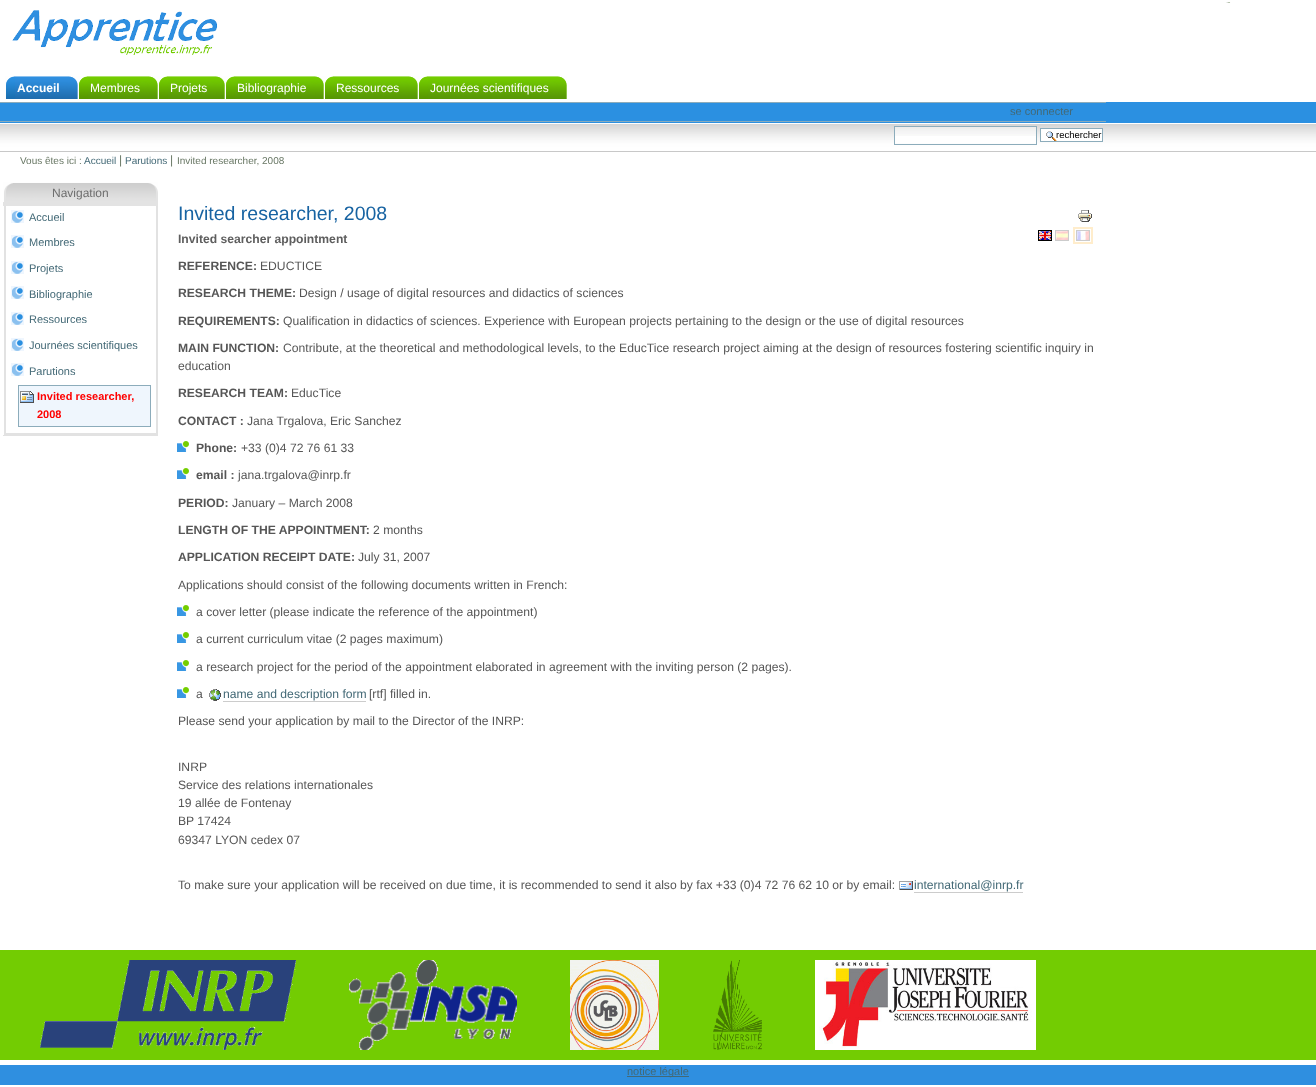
<?xml version="1.0" encoding="UTF-8"?>
<svg xmlns="http://www.w3.org/2000/svg" xmlns:xlink="http://www.w3.org/1999/xlink" width="1316" height="1087">
  <rect width="100%" height="100%" fill="#ffffff" />
  <image x="0" y="2" width="1316" height="150" xlink:href="image1.png" />
  <image x="12" y="10" width="206" height="45" xlink:href="image2.png" />
  <image x="15" y="76" width="63" height="23" xlink:href="image3.png" />
  <image x="5" y="76" width="10" height="23" xlink:href="image4.png" />
  <image x="88" y="76" width="70" height="23" xlink:href="image5.png" />
  <image x="78" y="76" width="10" height="23" xlink:href="image6.png" />
  <image x="168" y="76" width="57" height="23" xlink:href="image7.png" />
  <image x="158" y="76" width="10" height="23" xlink:href="image6.png" />
  <image x="235" y="76" width="89" height="23" xlink:href="image8.png" />
  <image x="225" y="76" width="10" height="23" xlink:href="image6.png" />
  <image x="334" y="76" width="84" height="23" xlink:href="image9.png" />
  <image x="324" y="76" width="10" height="23" xlink:href="image6.png" />
  <image x="428" y="76" width="139" height="23" xlink:href="image10.png" />
  <image x="418" y="76" width="10" height="23" xlink:href="image6.png" />
  <rect y="102" width="1106" height="1" fill="#8cacbb" />
  <rect y="121" width="1106" height="1" fill="#8cacbb" />
  <rect x="895" y="136" width="141" height="7" fill="#ffffff" />
  <image x="895" y="127" width="141" height="9" xlink:href="image11.png" />
  <rect x="894.5" y="126.5" width="142" height="18" fill="none" stroke="#8cacbb" />
  <rect x="1041" y="129" width="61" height="12" fill="#ffffff" />
  <image x="1046" y="131" width="11" height="10" xlink:href="image12.png" />
  <rect x="1040.5" y="128.5" width="62" height="13" fill="none" stroke="#8cacbb" />
  <rect x="3" y="435" width="155" height="1" fill="#e2e2e2" />
  <rect x="5" y="183" width="152" height="251" fill="none" stroke="#e2e2e2" stroke-width="2" />
  <image x="3" y="182" width="155" height="24" xlink:href="image13.png" />
  <image x="3" y="183" width="10" height="19" xlink:href="image14.png" />
  <image x="11" y="210" width="13" height="13" xlink:href="image15.png" />
  <image x="11" y="235" width="13" height="13" xlink:href="image15.png" />
  <image x="11" y="261" width="13" height="13" xlink:href="image15.png" />
  <image x="11" y="286" width="13" height="13" xlink:href="image15.png" />
  <image x="11" y="312" width="13" height="13" xlink:href="image15.png" />
  <image x="11" y="338" width="13" height="13" xlink:href="image15.png" />
  <image x="11" y="363" width="13" height="13" xlink:href="image15.png" />
  <rect x="19" y="386" width="131" height="40" fill="#eff6fd" />
  <image x="20" y="391" width="14" height="12" xlink:href="image16.png" />
  <rect x="18.5" y="385.5" width="132" height="41" fill="none" stroke="#8cacbb" />
  <image x="1078" y="210" width="14" height="12" xlink:href="image17.png" />
  <image x="1038" y="230" width="14" height="11" xlink:href="image18.png" />
  <image x="1055" y="230" width="14" height="11" xlink:href="image19.png" />
  <rect x="1074" y="228" width="18" height="15" fill="none" stroke="#ffedcc" stroke-width="2" />
  <image x="1076" y="230" width="14" height="11" xlink:href="image20.png" />
  <image x="177" y="441" width="12" height="11" xlink:href="image21.png" />
  <image x="177" y="468" width="12" height="11" xlink:href="image21.png" />
  <image x="177" y="605" width="12" height="11" xlink:href="image21.png" />
  <image x="177" y="632" width="12" height="11" xlink:href="image21.png" />
  <image x="177" y="660" width="12" height="11" xlink:href="image21.png" />
  <image x="177" y="687" width="12" height="11" xlink:href="image21.png" />
  <image x="209" y="689" width="12" height="12" xlink:href="image22.png" />
  <rect x="223" y="701" width="143" height="1" fill="#cccccc" />
  <image x="899" y="881" width="14" height="9" xlink:href="image23.png" />
  <rect x="914" y="892" width="109" height="1" fill="#cccccc" />
  <rect y="950" width="1316" height="110" fill="#73cc02" />
  <image x="40" y="960" width="256" height="90" xlink:href="image24.png" />
  <image x="349" y="960" width="168" height="90" xlink:href="image25.png" />
  <image x="570" y="960" width="89" height="90" xlink:href="image26.png" />
  <image x="713" y="960" width="49" height="90" xlink:href="image27.png" />
  <image x="815" y="960" width="221" height="90" xlink:href="image28.png" />
  <rect y="1065" width="1316" height="20" fill="#2f8fe0" />
  <rect x="627" y="1076" width="62" height="1" fill="#436976" />
  <text x="17" y="92" style="font-family: Liberation Sans; font-size: 12px; font-weight: bold; fill: #ffffff">Accueil</text>
  <text x="90" y="92" style="font-family: Liberation Sans; font-size: 12px; fill: #ffffff">Membres</text>
  <text x="170" y="92" style="font-family: Liberation Sans; font-size: 12px; fill: #ffffff">Projets</text>
  <text x="237" y="92" style="font-family: Liberation Sans; font-size: 12px; fill: #ffffff">Bibliographie</text>
  <text x="336" y="92" style="font-family: Liberation Sans; font-size: 12px; fill: #ffffff">Ressources</text>
  <text x="430" y="92" style="font-family: Liberation Sans; font-size: 12px; fill: #ffffff">Journées scientifiques</text>
  <text x="1010" y="115" style="font-family: Liberation Sans; font-size: 11px; fill: #436976">se connecter</text>
  <text x="1056" y="138" style="font-family: Liberation Sans; font-size: 9.5px; fill: #000000">rechercher</text>
  <text x="20" y="164" style="font-family: Liberation Sans; font-size: 10px; fill: #687764">Vous êtes ici :</text>
  <text x="84" y="164" style="font-family: Liberation Sans; font-size: 10px; fill: #436976">Accueil</text>
  <text x="119" y="164" style="font-family: Liberation Sans; font-size: 12px; fill: #687764">|</text>
  <text x="125" y="164" style="font-family: Liberation Sans; font-size: 10px; fill: #436976">Parutions</text>
  <text x="170" y="164" style="font-family: Liberation Sans; font-size: 12px; fill: #687764">|</text>
  <text x="177" y="164" style="font-family: Liberation Sans; font-size: 10px; fill: #687764">Invited researcher, 2008</text>
  <text x="52" y="197" style="font-family: Liberation Sans; font-size: 12px; fill: #6e6e6e">Navigation</text>
  <text x="29" y="221" style="font-family: Liberation Sans; font-size: 11px; fill: #436976">Accueil</text>
  <text x="29" y="246" style="font-family: Liberation Sans; font-size: 11px; fill: #436976">Membres</text>
  <text x="29" y="272" style="font-family: Liberation Sans; font-size: 11px; fill: #436976">Projets</text>
  <text x="29" y="298" style="font-family: Liberation Sans; font-size: 11px; fill: #436976">Bibliographie</text>
  <text x="29" y="323" style="font-family: Liberation Sans; font-size: 11px; fill: #436976">Ressources</text>
  <text x="29" y="349" style="font-family: Liberation Sans; font-size: 11px; fill: #436976">Journées scientifiques</text>
  <text x="29" y="375" style="font-family: Liberation Sans; font-size: 11px; fill: #436976">Parutions</text>
  <text x="37" y="400" style="font-family: Liberation Sans; font-size: 11px; font-weight: bold; fill: #ff0000">Invited researcher,</text>
  <text x="37" y="418" style="font-family: Liberation Sans; font-size: 11px; font-weight: bold; fill: #ff0000">2008</text>
  <text x="178" y="220" style="font-family: Liberation Sans; font-size: 19.5px; fill: #1763a2">Invited researcher, 2008</text>
  <text x="178" y="243" style="font-family: Liberation Sans; font-size: 12.15px; font-weight: bold; fill: #5e5e5e">Invited searcher appointment</text>
  <text x="178" y="270" style="font-family: Liberation Sans; font-size: 12.15px; font-weight: bold; fill: #565656">REFERENCE:</text>
  <text x="260" y="270" style="font-family: Liberation Sans; font-size: 12.15px; fill: #565656">EDUCTICE</text>
  <text x="178" y="297" style="font-family: Liberation Sans; font-size: 12.15px; font-weight: bold; fill: #565656">RESEARCH THEME:</text>
  <text x="299" y="297" style="font-family: Liberation Sans; font-size: 12.15px; fill: #565656">Design / usage of digital resources and didactics of sciences</text>
  <text x="178" y="325" style="font-family: Liberation Sans; font-size: 12.15px; font-weight: bold; fill: #565656">REQUIREMENTS:</text>
  <text x="283" y="325" style="font-family: Liberation Sans; font-size: 12.15px; fill: #565656">Qualification in didactics of sciences. Experience with European projects pertaining to the design or the use of digital resources</text>
  <text x="178" y="352" style="font-family: Liberation Sans; font-size: 12.15px; font-weight: bold; fill: #565656">MAIN FUNCTION:</text>
  <text x="283" y="352" style="font-family: Liberation Sans; font-size: 12.15px; fill: #565656">Contribute, at the theoretical and methodological levels, to the EducTice research project aiming at the design of resources fostering scientific inquiry in</text>
  <text x="178" y="370" style="font-family: Liberation Sans; font-size: 12.15px; fill: #565656">education</text>
  <text x="178" y="397" style="font-family: Liberation Sans; font-size: 12.15px; font-weight: bold; fill: #565656">RESEARCH TEAM:</text>
  <text x="291" y="397" style="font-family: Liberation Sans; font-size: 12.15px; fill: #565656">EducTice</text>
  <text x="178" y="425" style="font-family: Liberation Sans; font-size: 12.15px; font-weight: bold; fill: #565656">CONTACT :</text>
  <text x="247" y="425" style="font-family: Liberation Sans; font-size: 12.15px; fill: #565656">Jana Trgalova, Eric Sanchez</text>
  <text x="196" y="452" style="font-family: Liberation Sans; font-size: 12.15px; font-weight: bold; fill: #565656">Phone:</text>
  <text x="241" y="452" style="font-family: Liberation Sans; font-size: 12.15px; fill: #565656">+33 (0)4 72 76 61 33</text>
  <text x="196" y="479" style="font-family: Liberation Sans; font-size: 12.15px; font-weight: bold; fill: #565656">email :</text>
  <text x="238" y="479" style="font-family: Liberation Sans; font-size: 12.15px; fill: #565656">jana.trgalova@inrp.fr</text>
  <text x="178" y="507" style="font-family: Liberation Sans; font-size: 12.15px; font-weight: bold; fill: #565656">PERIOD:</text>
  <text x="232" y="507" style="font-family: Liberation Sans; font-size: 12.15px; fill: #565656">January – March 2008</text>
  <text x="178" y="534" style="font-family: Liberation Sans; font-size: 12.15px; font-weight: bold; fill: #565656">LENGTH OF THE APPOINTMENT:</text>
  <text x="373" y="534" style="font-family: Liberation Sans; font-size: 12.15px; fill: #565656">2 months</text>
  <text x="178" y="561" style="font-family: Liberation Sans; font-size: 12.15px; font-weight: bold; fill: #565656">APPLICATION RECEIPT DATE:</text>
  <text x="358" y="561" style="font-family: Liberation Sans; font-size: 12.15px; fill: #565656">July 31, 2007</text>
  <text x="178" y="589" style="font-family: Liberation Sans; font-size: 12.15px; fill: #565656">Applications should consist of the following documents written in French:</text>
  <text x="196" y="616" style="font-family: Liberation Sans; font-size: 12.15px; fill: #565656">a cover letter (please indicate the reference of the appointment)</text>
  <text x="196" y="643" style="font-family: Liberation Sans; font-size: 12.15px; fill: #565656">a current curriculum vitae (2 pages maximum)</text>
  <text x="196" y="671" style="font-family: Liberation Sans; font-size: 12.15px; fill: #565656">a research project for the period of the appointment elaborated in agreement with the inviting person (2 pages).</text>
  <text x="196" y="698" style="font-family: Liberation Sans; font-size: 12.15px; fill: #565656">a</text>
  <text x="223" y="698" style="font-family: Liberation Sans; font-size: 12.15px; fill: #436976">name and description form</text>
  <text x="369" y="698" style="font-family: Liberation Sans; font-size: 12.15px; fill: #565656">[rtf] filled in.</text>
  <text x="178" y="725" style="font-family: Liberation Sans; font-size: 12.15px; fill: #565656">Please send your application by mail to the Director of the INRP:</text>
  <text x="178" y="771" style="font-family: Liberation Sans; font-size: 12.15px; fill: #565656">INRP</text>
  <text x="178" y="789" style="font-family: Liberation Sans; font-size: 12.15px; fill: #565656">Service des relations internationales</text>
  <text x="178" y="807" style="font-family: Liberation Sans; font-size: 12.15px; fill: #565656">19 allée de Fontenay</text>
  <text x="178" y="825" style="font-family: Liberation Sans; font-size: 12.15px; fill: #565656">BP 17424</text>
  <text x="178" y="844" style="font-family: Liberation Sans; font-size: 12.15px; fill: #565656">69347 LYON cedex 07</text>
  <text x="178" y="889" style="font-family: Liberation Sans; font-size: 12.15px; fill: #565656">To make sure your application will be received on due time, it is recommended to send it also by fax +33 (0)4 72 76 62 10 or by email:</text>
  <text x="914" y="889" style="font-family: Liberation Sans; font-size: 12.15px; fill: #436976">international@inrp.fr</text>
  <text x="627" y="1075" style="font-family: Liberation Sans; font-size: 11px; fill: #436976">notice légale</text>
</svg>
